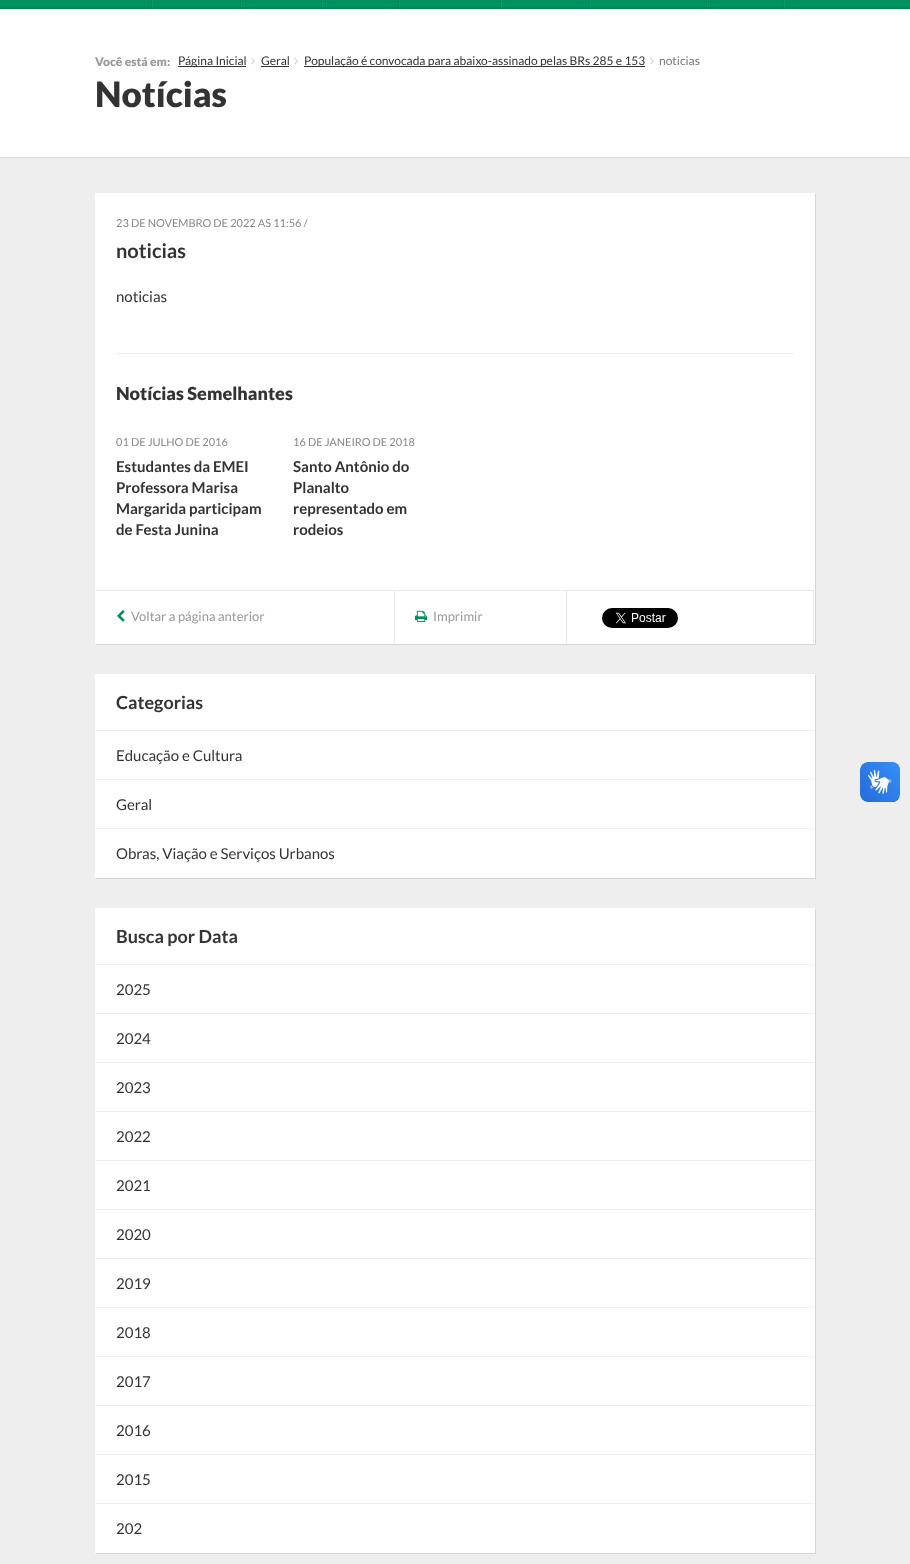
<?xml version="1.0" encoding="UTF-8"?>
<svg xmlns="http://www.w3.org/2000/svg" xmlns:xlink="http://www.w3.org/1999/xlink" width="910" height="1564">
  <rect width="100%" height="100%" fill="#ffffff" />
  <rect width="910" height="7" fill="#009160" />
  <rect x="784" width="1" height="9" fill="#0d9768" />
  <rect x="707" width="1" height="9" fill="#0d9768" />
  <rect x="783" width="1" height="9" fill="#008356" />
  <rect x="590" width="1" height="9" fill="#0d9768" />
  <rect x="706" width="1" height="9" fill="#008356" />
  <rect x="501" width="1" height="9" fill="#0d9768" />
  <rect x="589" width="1" height="9" fill="#008356" />
  <rect x="399" width="1" height="9" fill="#0d9768" />
  <rect x="500" width="1" height="9" fill="#008356" />
  <rect x="322" width="1" height="9" fill="#0d9768" />
  <rect x="398" width="1" height="9" fill="#008356" />
  <rect x="241" width="1" height="9" fill="#0d9768" />
  <rect x="321" width="1" height="9" fill="#008356" />
  <rect x="152" width="1" height="9" fill="#0d9768" />
  <rect x="240" width="1" height="9" fill="#008356" />
  <rect x="151" width="1" height="9" fill="#008356" />
  <rect y="7" width="910" height="2" fill="#008356" />
  <rect x="784" y="7" width="1" height="2" fill="#0d895e" />
  <rect x="707" y="7" width="1" height="2" fill="#0d895e" />
  <rect x="783" y="7" width="1" height="2" fill="#00764d" />
  <rect x="590" y="7" width="1" height="2" fill="#0d895e" />
  <rect x="706" y="7" width="1" height="2" fill="#00764d" />
  <rect x="501" y="7" width="1" height="2" fill="#0d895e" />
  <rect x="589" y="7" width="1" height="2" fill="#00764d" />
  <rect x="399" y="7" width="1" height="2" fill="#0d895e" />
  <rect x="500" y="7" width="1" height="2" fill="#00764d" />
  <rect x="322" y="7" width="1" height="2" fill="#0d895e" />
  <rect x="398" y="7" width="1" height="2" fill="#00764d" />
  <rect x="241" y="7" width="1" height="2" fill="#0d895e" />
  <rect x="321" y="7" width="1" height="2" fill="#00764d" />
  <rect x="152" y="7" width="1" height="2" fill="#0d895e" />
  <rect x="240" y="7" width="1" height="2" fill="#00764d" />
  <rect x="151" y="7" width="1" height="2" fill="#00764d" />
  <rect y="9" width="910" height="1" fill="#eeeeee" />
  <rect y="157" width="910" height="1" fill="#dddddd" />
  <rect x="178" y="66" width="68" height="1" fill="#333333" />
  <image x="251" y="58" width="4" height="7" xlink:href="image1.png" />
  <rect x="261" y="66" width="28" height="1" fill="#333333" />
  <image x="294" y="58" width="4" height="7" xlink:href="image1.png" />
  <rect x="304" y="66" width="341" height="1" fill="#333333" />
  <image x="650" y="58" width="4" height="7" xlink:href="image1.png" />
  <rect y="158" width="910" height="1406" fill="#eeeeee" />
  <path d="M 96 644 v 1 h 720 v -451 h -1 v 450 z" fill="#d6d6d6" />
  <rect x="95" y="193" width="720" height="451" fill="#ffffff" />
  <rect x="116" y="353" width="678" height="1" fill="#eeeeee" />
  <rect x="96" y="590" width="718" height="1" fill="#e8e8e8" />
  <rect x="394" y="591" width="1" height="52" fill="#e8e8e8" />
  <image x="117" y="610" width="8" height="12" xlink:href="image2.png" />
  <rect x="566" y="591" width="1" height="52" fill="#e8e8e8" />
  <image x="415" y="610" width="13" height="12" xlink:href="image3.png" />
  <rect x="813" y="591" width="1" height="52" fill="#e8e8e8" />
  <image x="602" y="608" width="76" height="20" xlink:href="image4.png" />
  <path d="M 96 878 v 1 h 720 v -204 h -1 v 203 z" fill="#d6d6d6" />
  <rect x="95" y="674" width="720" height="204" fill="#ffffff" />
  <rect x="96" y="730" width="718" height="1" fill="#eeeeee" />
  <rect x="96" y="779" width="718" height="1" fill="#eeeeee" />
  <rect x="96" y="828" width="718" height="1" fill="#eeeeee" />
  <path d="M 96 1553 v 1 h 720 v -645 h -1 v 644 z" fill="#d6d6d6" />
  <rect x="95" y="908" width="720" height="645" fill="#ffffff" />
  <rect x="96" y="964" width="718" height="1" fill="#eeeeee" />
  <rect x="96" y="1013" width="718" height="1" fill="#eeeeee" />
  <rect x="96" y="1062" width="718" height="1" fill="#eeeeee" />
  <rect x="96" y="1111" width="718" height="1" fill="#eeeeee" />
  <rect x="96" y="1160" width="718" height="1" fill="#eeeeee" />
  <rect x="96" y="1209" width="718" height="1" fill="#eeeeee" />
  <rect x="96" y="1258" width="718" height="1" fill="#eeeeee" />
  <rect x="96" y="1307" width="718" height="1" fill="#eeeeee" />
  <rect x="96" y="1356" width="718" height="1" fill="#eeeeee" />
  <rect x="96" y="1405" width="718" height="1" fill="#eeeeee" />
  <rect x="96" y="1454" width="718" height="1" fill="#eeeeee" />
  <rect x="96" y="1503" width="718" height="1" fill="#eeeeee" />
  <image x="860" y="762" width="40" height="40" xlink:href="image5.png" />
  <image x="860" y="762" width="40" height="40" xlink:href="image6.png" />
  <text x="95" y="66" style="font-family: Lato; font-size: 12px; font-weight: 900; fill: #999999">Você está em:</text>
  <text x="178" y="65" style="font-family: Lato; font-size: 12px; fill: #333333">Página Inicial</text>
  <text x="261" y="65" style="font-family: Lato; font-size: 12px; fill: #333333">Geral</text>
  <text x="304" y="65" style="font-family: Lato; font-size: 12px; fill: #333333">População é convocada para abaixo-assinado pelas BRs 285 e 153</text>
  <text x="659" y="65" style="font-family: Lato; font-size: 12px; fill: #777777">noticias</text>
  <text x="95" y="107" style="font-family: Lato; font-size: 35px; font-weight: 900; fill: #333333">Notícias</text>
  <text x="116" y="227" style="font-family: Lato; font-size: 11px; fill: #888888">23 DE NOVEMBRO DE 2022 AS 11:56 /</text>
  <text x="116" y="258" style="font-family: Lato; font-size: 20px; font-weight: bold; fill: #333333">noticias</text>
  <text x="116" y="302" style="font-family: Lato; font-size: 15px; fill: #333333">noticias</text>
  <text x="116" y="400" style="font-family: Lato; font-size: 18px; font-weight: 900; fill: #333333">Notícias Semelhantes</text>
  <text x="116" y="446" style="font-family: Lato; font-size: 11px; fill: #888888">01 DE JULHO DE 2016</text>
  <text x="116" y="472" style="font-family: Lato; font-size: 15px; font-weight: bold; fill: #333333">Estudantes da EMEI</text>
  <text x="116" y="493" style="font-family: Lato; font-size: 15px; font-weight: bold; fill: #333333">Professora Marisa</text>
  <text x="116" y="514" style="font-family: Lato; font-size: 15px; font-weight: bold; fill: #333333">Margarida participam</text>
  <text x="116" y="535" style="font-family: Lato; font-size: 15px; font-weight: bold; fill: #333333">de Festa Junina</text>
  <text x="293" y="446" style="font-family: Lato; font-size: 11px; fill: #888888">16 DE JANEIRO DE 2018</text>
  <text x="293" y="472" style="font-family: Lato; font-size: 15px; font-weight: bold; fill: #333333">Santo Antônio do</text>
  <text x="293" y="493" style="font-family: Lato; font-size: 15px; font-weight: bold; fill: #333333">Planalto</text>
  <text x="293" y="514" style="font-family: Lato; font-size: 15px; font-weight: bold; fill: #333333">representado em</text>
  <text x="293" y="535" style="font-family: Lato; font-size: 15px; font-weight: bold; fill: #333333">rodeios</text>
  <text x="131" y="621" style="font-family: Lato; font-size: 13px; fill: #999999">Voltar a página anterior</text>
  <text x="433" y="621" style="font-family: Lato; font-size: 13px; fill: #999999">Imprimir</text>
  <text x="116" y="709" style="font-family: Lato; font-size: 18px; font-weight: bold; fill: #333333">Categorias</text>
  <text x="116" y="761" style="font-family: Lato; font-size: 15px; fill: #333333">Educação e Cultura</text>
  <text x="116" y="810" style="font-family: Lato; font-size: 15px; fill: #333333">Geral</text>
  <text x="116" y="859" style="font-family: Lato; font-size: 15px; fill: #333333">Obras, Viação e Serviços Urbanos</text>
  <text x="116" y="943" style="font-family: Lato; font-size: 18px; font-weight: bold; fill: #333333">Busca por Data</text>
  <text x="116" y="995" style="font-family: Lato; font-size: 15px; fill: #333333">2025</text>
  <text x="116" y="1044" style="font-family: Lato; font-size: 15px; fill: #333333">2024</text>
  <text x="116" y="1093" style="font-family: Lato; font-size: 15px; fill: #333333">2023</text>
  <text x="116" y="1142" style="font-family: Lato; font-size: 15px; fill: #333333">2022</text>
  <text x="116" y="1191" style="font-family: Lato; font-size: 15px; fill: #333333">2021</text>
  <text x="116" y="1240" style="font-family: Lato; font-size: 15px; fill: #333333">2020</text>
  <text x="116" y="1289" style="font-family: Lato; font-size: 15px; fill: #333333">2019</text>
  <text x="116" y="1338" style="font-family: Lato; font-size: 15px; fill: #333333">2018</text>
  <text x="116" y="1387" style="font-family: Lato; font-size: 15px; fill: #333333">2017</text>
  <text x="116" y="1436" style="font-family: Lato; font-size: 15px; fill: #333333">2016</text>
  <text x="116" y="1485" style="font-family: Lato; font-size: 15px; fill: #333333">2015</text>
  <text x="116" y="1534" style="font-family: Lato; font-size: 15px; fill: #333333">202</text>
</svg>
